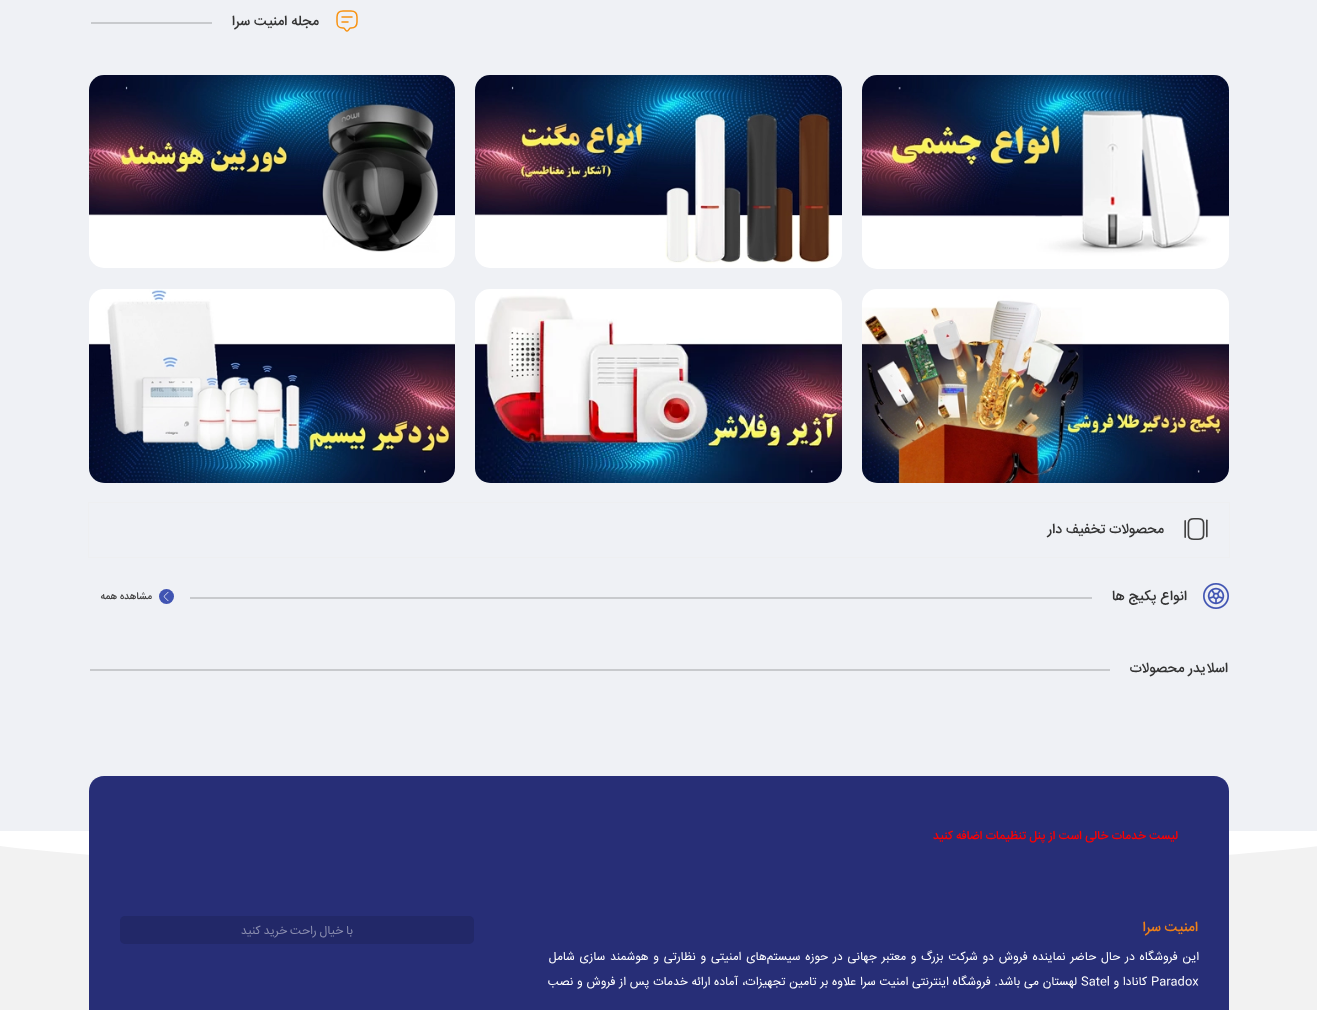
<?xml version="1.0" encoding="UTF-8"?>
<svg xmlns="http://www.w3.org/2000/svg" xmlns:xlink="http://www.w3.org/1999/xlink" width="1317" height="1010">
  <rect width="100%" height="100%" fill="#eff1f5" />
  <image x="336" y="10" width="22" height="22" xlink:href="image1.png" />
  <rect x="91" y="22" width="121" height="2" fill="#c8cacd" />
  <image x="862" y="75" width="367" height="194" xlink:href="image2.png" />
  <image x="475" y="75" width="367" height="193" xlink:href="image3.png" />
  <image x="89" y="75" width="366" height="193" xlink:href="image4.png" />
  <image x="862" y="289" width="367" height="194" xlink:href="image5.png" />
  <image x="475" y="289" width="367" height="194" xlink:href="image6.png" />
  <image x="89" y="289" width="366" height="194" xlink:href="image7.png" />
  <rect x="88.5" y="502.5" width="1141" height="55" fill="none" stroke="#eeeff1" />
  <image x="1184" y="518" width="24" height="22" xlink:href="image8.png" />
  <image x="1203" y="583" width="26" height="26" xlink:href="image9.png" />
  <rect x="190" y="597" width="902" height="2" fill="#c8cacd" />
  <circle cx="166.5" cy="596.5" r="7.5" fill="#4054b2" />
  <image x="163" y="591" width="6" height="11" xlink:href="image10.png" />
  <rect x="90" y="669" width="1020" height="2" fill="#c8cacd" />
  <rect y="845" width="1317" height="165" fill="#f2f2f2" />
  <path d="M 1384 833 v -2 h -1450 v 2 c 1 7 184 39 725 39 c 541 0 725 -32 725 -39 z" fill="#ffffff" />
  <path d="M 104 776 h 1110 c 8.5 0 15 6.5 15 15 v 105 h -1140 v -105 c 0 -8.5 6.5 -15 15 -15 z" fill="#272e77" />
  <rect x="89" y="896" width="1140" height="114" fill="#272e77" />
  <rect x="120" y="916" width="354" height="28" rx="5" fill="#222868" />
  <text x="319" y="25" style="font-family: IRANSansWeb; font-size: 14px; font-weight: 500; direction: rtl; fill: #333333">مجله امنیت سرا</text>
  <text x="1164" y="533" style="font-family: IRANSansWeb; font-size: 14px; font-weight: 500; direction: rtl; fill: #333333">محصولات تخفیف دار</text>
  <text x="1187" y="600" style="font-family: IRANSansWeb; font-size: 14px; font-weight: 500; direction: rtl; fill: #333333">انواع پکیج ها</text>
  <text x="152" y="599" style="font-family: IRANSansWeb; font-size: 10px; font-weight: 500; direction: rtl; fill: #444444">مشاهده همه</text>
  <text x="1228" y="672" style="font-family: IRANSansWeb; font-size: 14px; font-weight: 500; direction: rtl; fill: #333333">اسلایدر محصولات</text>
  <text x="1178" y="839" style="font-family: IRANSansWeb; font-size: 12px; font-weight: 500; direction: rtl; fill: #ff0000">لیست خدمات خالی است از پنل تنظیمات اضافه کنید</text>
  <text x="1198" y="931" style="font-family: IRANSansWeb; font-size: 14px; font-weight: 500; direction: rtl; fill: #ed801a">امنیت سرا</text>
  <text x="1199" y="960" word-spacing="1.4" style="font-family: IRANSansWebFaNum; font-size: 12px; direction: rtl; fill: #ffffff">این فروشگاه در حال حاضر نماینده فروش دو شرکت بزرگ و معتبر جهانی در حوزه سیستم‌های امنیتی و نظارتی و هوشمند سازی شامل</text>
  <text x="1151" y="985" style="font-family: IRANSansWebFaNum; font-size: 12px; fill: #ffffff">Paradox</text>
  <text x="1147" y="985" word-spacing="0.4" style="font-family: IRANSansWebFaNum; font-size: 12px; direction: rtl; fill: #ffffff">کانادا و</text>
  <text x="1081" y="985" style="font-family: IRANSansWebFaNum; font-size: 12px; fill: #ffffff">Satel</text>
  <text x="1077" y="985" word-spacing="0.4" style="font-family: IRANSansWebFaNum; font-size: 12px; direction: rtl; fill: #ffffff">لهستان می باشد. فروشگاه اینترنتی امنیت سرا‌ علاوه بر تامین تجهیزات، آماده ارائه خدمات پس از فروش و نصب</text>
  <text x="353" y="934" word-spacing="-0.5" style="font-family: IRANSansWeb; font-size: 12px; direction: rtl; fill: #8a8daf">با خیال راحت خرید کنید</text>
</svg>
